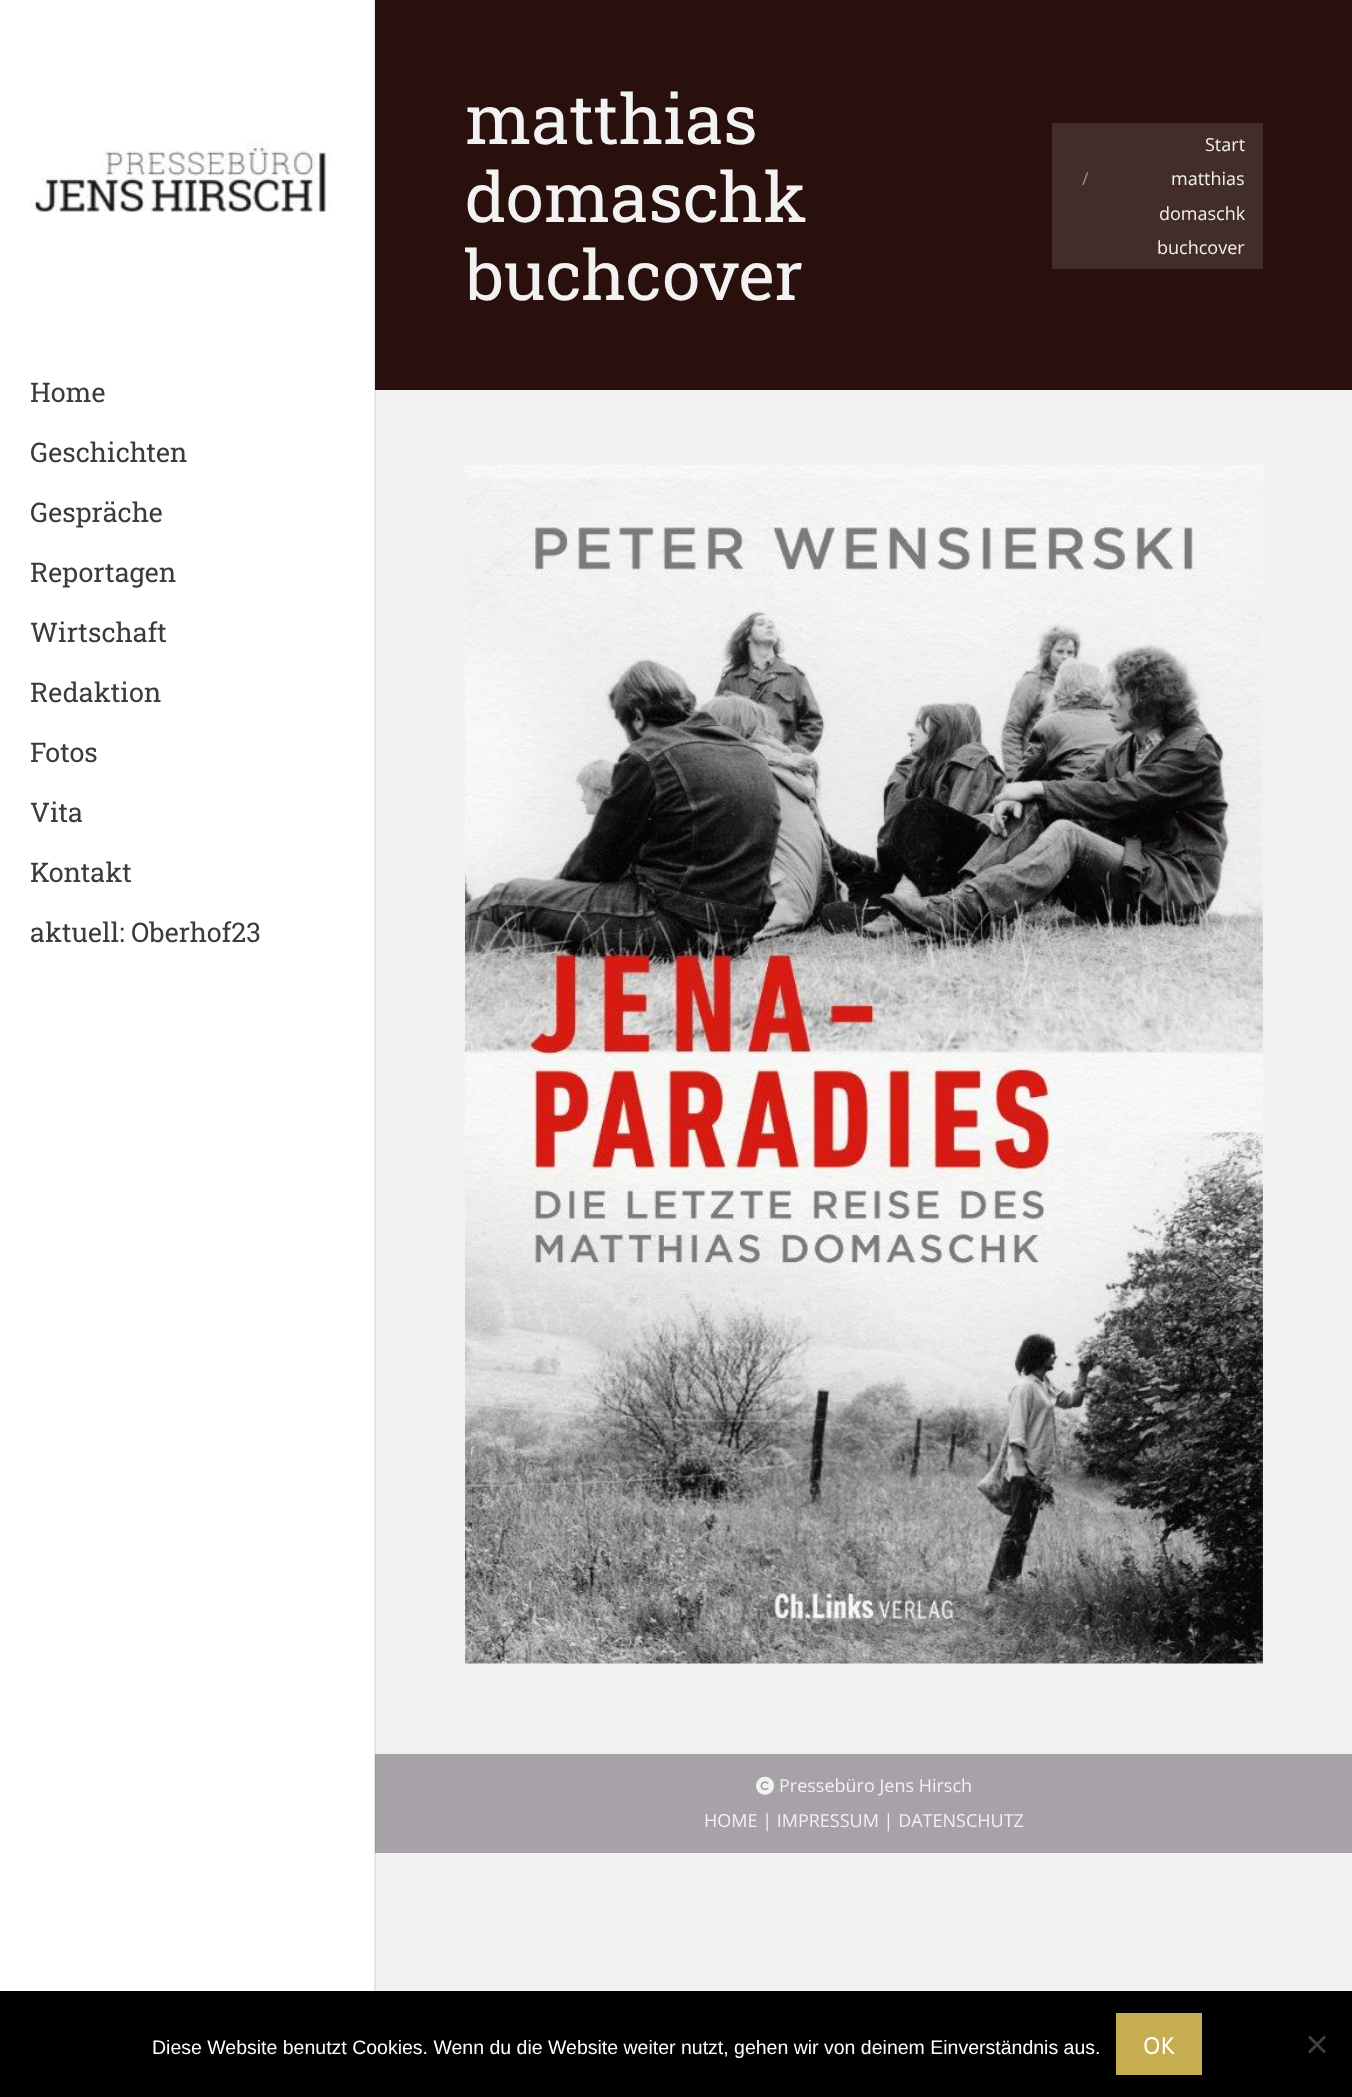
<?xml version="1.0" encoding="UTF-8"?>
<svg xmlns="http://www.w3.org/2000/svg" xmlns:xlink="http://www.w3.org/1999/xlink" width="1352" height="2097">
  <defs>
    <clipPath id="clip1"><rect x="465" y="78" width="587" height="234" /></clipPath>
  </defs>
  <rect width="100%" height="100%" fill="#f2f2f2" />
  <rect x="375" y="390" width="1" height="1601" fill="#dfdfdf" />
  <rect x="376" width="976" height="390" fill="#29100c" />
  <rect x="375" width="1" height="390" fill="#260f0b" />
  <rect x="1052" y="123" width="211" height="146" fill="#432d29" />
  <rect width="374" height="1991" fill="#ffffff" />
  <rect x="374" width="1" height="1991" fill="#ebebeb" />
  <image x="30" y="140" width="300" height="72" xlink:href="image1.png" />
  <image x="465" y="465" width="798" height="1199" xlink:href="image2.png" />
  <rect x="376" y="1754" width="976" height="99" fill="#a6a2a7" />
  <rect x="375" y="1754" width="1" height="99" fill="#99959a" />
  <image x="756" y="1776" width="18" height="19" xlink:href="image3.png" />
  <rect y="1991" width="1352" height="106" fill="#000000" />
  <rect x="1116" y="2013" width="86" height="62" fill="#c6ad4f" />
  <path d="M 1324 2035.5 l 2 2 l -16 16 l -2 -2 z" fill="#404040" />
  <path d="M 1308 2037.5 l 2 -2 l 16 16 l -2 2 z" fill="#404040" />
  <text x="465" y="144" style="font-family: Roboto Slab; font-size: 69px; fill: #f2f2f2">matthias</text>
  <text x="465" y="222" style="font-family: Roboto Slab; font-size: 69px; fill: #f2f2f2">domaschk</text>
  <g clip-path="url(#clip1)">
    <text x="465" y="300" style="font-family: Roboto Slab; font-size: 69px; fill: #f2f2f2">buchcover</text>
  </g>
  <text x="1205" y="151" style="font-family: Open Sans; font-size: 18px; fill: #f2f2f2">Start</text>
  <text x="1082" y="185" style="font-family: Open Sans; font-size: 18px; fill: #9b908e">/</text>
  <text x="1171" y="185" style="font-family: Open Sans; font-size: 18px; fill: #f2f2f2">matthias</text>
  <text x="1159" y="220" style="font-family: Open Sans; font-size: 18px; fill: #f2f2f2">domaschk</text>
  <text x="1157" y="254" style="font-family: Open Sans; font-size: 18px; fill: #f2f2f2">buchcover</text>
  <text x="30" y="402" style="font-family: Roboto Slab; font-size: 27px; fill: #3d3a3f">Home</text>
  <text x="30" y="462" style="font-family: Roboto Slab; font-size: 27px; fill: #3d3a3f">Geschichten</text>
  <text x="30" y="522" style="font-family: Roboto Slab; font-size: 27px; fill: #3d3a3f">Gespräche</text>
  <text x="30" y="582" style="font-family: Roboto Slab; font-size: 27px; fill: #3d3a3f">Reportagen</text>
  <text x="30" y="642" style="font-family: Roboto Slab; font-size: 27px; fill: #3d3a3f">Wirtschaft</text>
  <text x="30" y="702" style="font-family: Roboto Slab; font-size: 27px; fill: #3d3a3f">Redaktion</text>
  <text x="30" y="762" style="font-family: Roboto Slab; font-size: 27px; fill: #3d3a3f">Fotos</text>
  <text x="30" y="822" style="font-family: Roboto Slab; font-size: 27px; fill: #3d3a3f">Vita</text>
  <text x="30" y="882" style="font-family: Roboto Slab; font-size: 27px; fill: #3d3a3f">Kontakt</text>
  <text x="30" y="942" style="font-family: Roboto Slab; font-size: 27px; fill: #3d3a3f">aktuell: Oberhof23</text>
  <text x="779" y="1792" style="font-family: Open Sans; font-size: 18px; fill: #f2f2f2">Pressebüro Jens Hirsch</text>
  <text x="704" y="1827" style="font-family: Open Sans; font-size: 18px; fill: #f2f2f2">HOME | IMPRESSUM | DATENSCHUTZ</text>
  <text x="152" y="2054" style="font-family: Liberation Sans; font-size: 19.5px; fill: #ffffff">Diese Website benutzt Cookies. Wenn du die Website weiter nutzt, gehen wir von deinem Einverständnis aus.</text>
  <text x="1143" y="2054" style="font-family: Asap; font-size: 24px; fill: #ffffff">OK</text>
</svg>
